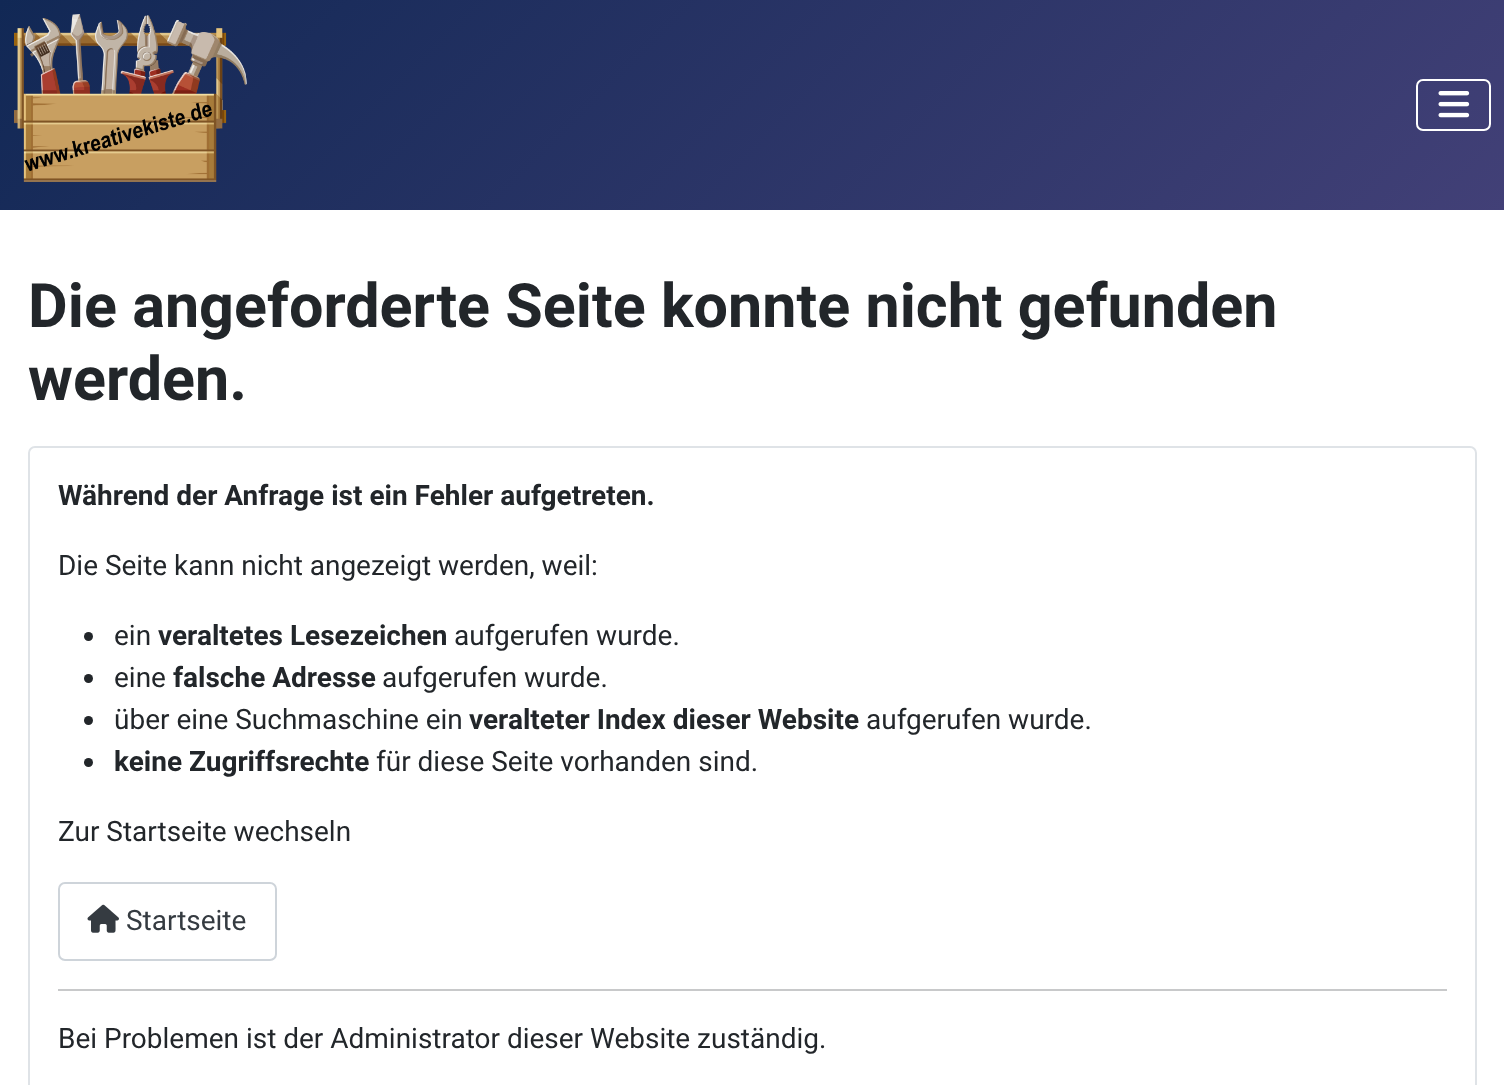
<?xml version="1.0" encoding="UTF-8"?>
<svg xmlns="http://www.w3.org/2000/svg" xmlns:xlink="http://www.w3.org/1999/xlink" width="1504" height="1085">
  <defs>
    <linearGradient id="g1" gradientUnits="userSpaceOnUse" x1="324" y1="-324" x2="1181" y2="534"><stop offset="0" stop-color="#112855" /><stop offset="1" stop-color="#424077" /></linearGradient>
  </defs>
  <rect width="100%" height="100%" fill="#ffffff" />
  <rect width="1504" height="210" fill="url(#g1)" />
  <image x="14" y="14" width="233" height="168" xlink:href="image1.png" />
  <rect x="1417" y="80" width="73" height="50" rx="6" fill="none" stroke="#ffffff" stroke-width="2" />
  <image x="1438" y="91" width="32" height="27" xlink:href="image2.png" />
  <rect x="29" y="447" width="1447" height="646" rx="6" fill="none" stroke="#dfe3e7" stroke-width="2" />
  <circle cx="88.5" cy="636.5" r="4.5" fill="#22262a" />
  <circle cx="88.5" cy="678.5" r="4.5" fill="#22262a" />
  <circle cx="88.5" cy="720.5" r="4.5" fill="#22262a" />
  <circle cx="88.5" cy="762.5" r="4.5" fill="#22262a" />
  <rect x="59" y="883" width="217" height="77" rx="6" fill="none" stroke="#ced4da" stroke-width="2" />
  <image x="87" y="904" width="32" height="29" xlink:href="image3.png" />
  <rect x="58" y="989" width="1389" height="2" fill="#c8c9ca" />
  <text x="28" y="327" style="font-family: Roboto; font-size: 61.1px; font-weight: bold; fill: #22262a">Die angeforderte Seite konnte nicht gefunden</text>
  <text x="28" y="400" style="font-family: Roboto; font-size: 61.1px; font-weight: bold; fill: #22262a">werden.</text>
  <text x="58" y="505" style="font-family: Roboto; font-size: 28px; font-weight: bold; fill: #22262a">Während der Anfrage ist ein Fehler aufgetreten.</text>
  <text x="58" y="575" style="font-family: Roboto; font-size: 28px; fill: #22262a">Die Seite kann nicht angezeigt werden, weil:</text>
  <text x="114" y="645" style="font-family: Roboto; font-size: 28px; fill: #22262a">ein</text>
  <text x="158" y="645" style="font-family: Roboto; font-size: 28px; font-weight: bold; fill: #22262a">veraltetes Lesezeichen</text>
  <text x="454" y="645" style="font-family: Roboto; font-size: 28px; fill: #22262a">aufgerufen wurde.</text>
  <text x="114" y="687" style="font-family: Roboto; font-size: 28px; fill: #22262a">eine</text>
  <text x="173" y="687" style="font-family: Roboto; font-size: 28px; font-weight: bold; fill: #22262a">falsche Adresse</text>
  <text x="382" y="687" style="font-family: Roboto; font-size: 28px; fill: #22262a">aufgerufen wurde.</text>
  <text x="114" y="729" style="font-family: Roboto; font-size: 28px; fill: #22262a">über eine Suchmaschine ein</text>
  <text x="469" y="729" style="font-family: Roboto; font-size: 28px; font-weight: bold; fill: #22262a">veralteter Index dieser Website</text>
  <text x="866" y="729" style="font-family: Roboto; font-size: 28px; fill: #22262a">aufgerufen wurde.</text>
  <text x="114" y="771" style="font-family: Roboto; font-size: 28px; font-weight: bold; fill: #22262a">keine Zugriffsrechte</text>
  <text x="376" y="771" style="font-family: Roboto; font-size: 28px; fill: #22262a">für diese Seite vorhanden sind.</text>
  <text x="58" y="841" style="font-family: Roboto; font-size: 28px; fill: #22262a">Zur Startseite wechseln</text>
  <text x="126" y="930" style="font-family: Roboto; font-size: 28px; fill: #353b41">Startseite</text>
  <text x="58" y="1048" style="font-family: Roboto; font-size: 28px; fill: #22262a">Bei Problemen ist der Administrator dieser Website zuständig.</text>
</svg>
